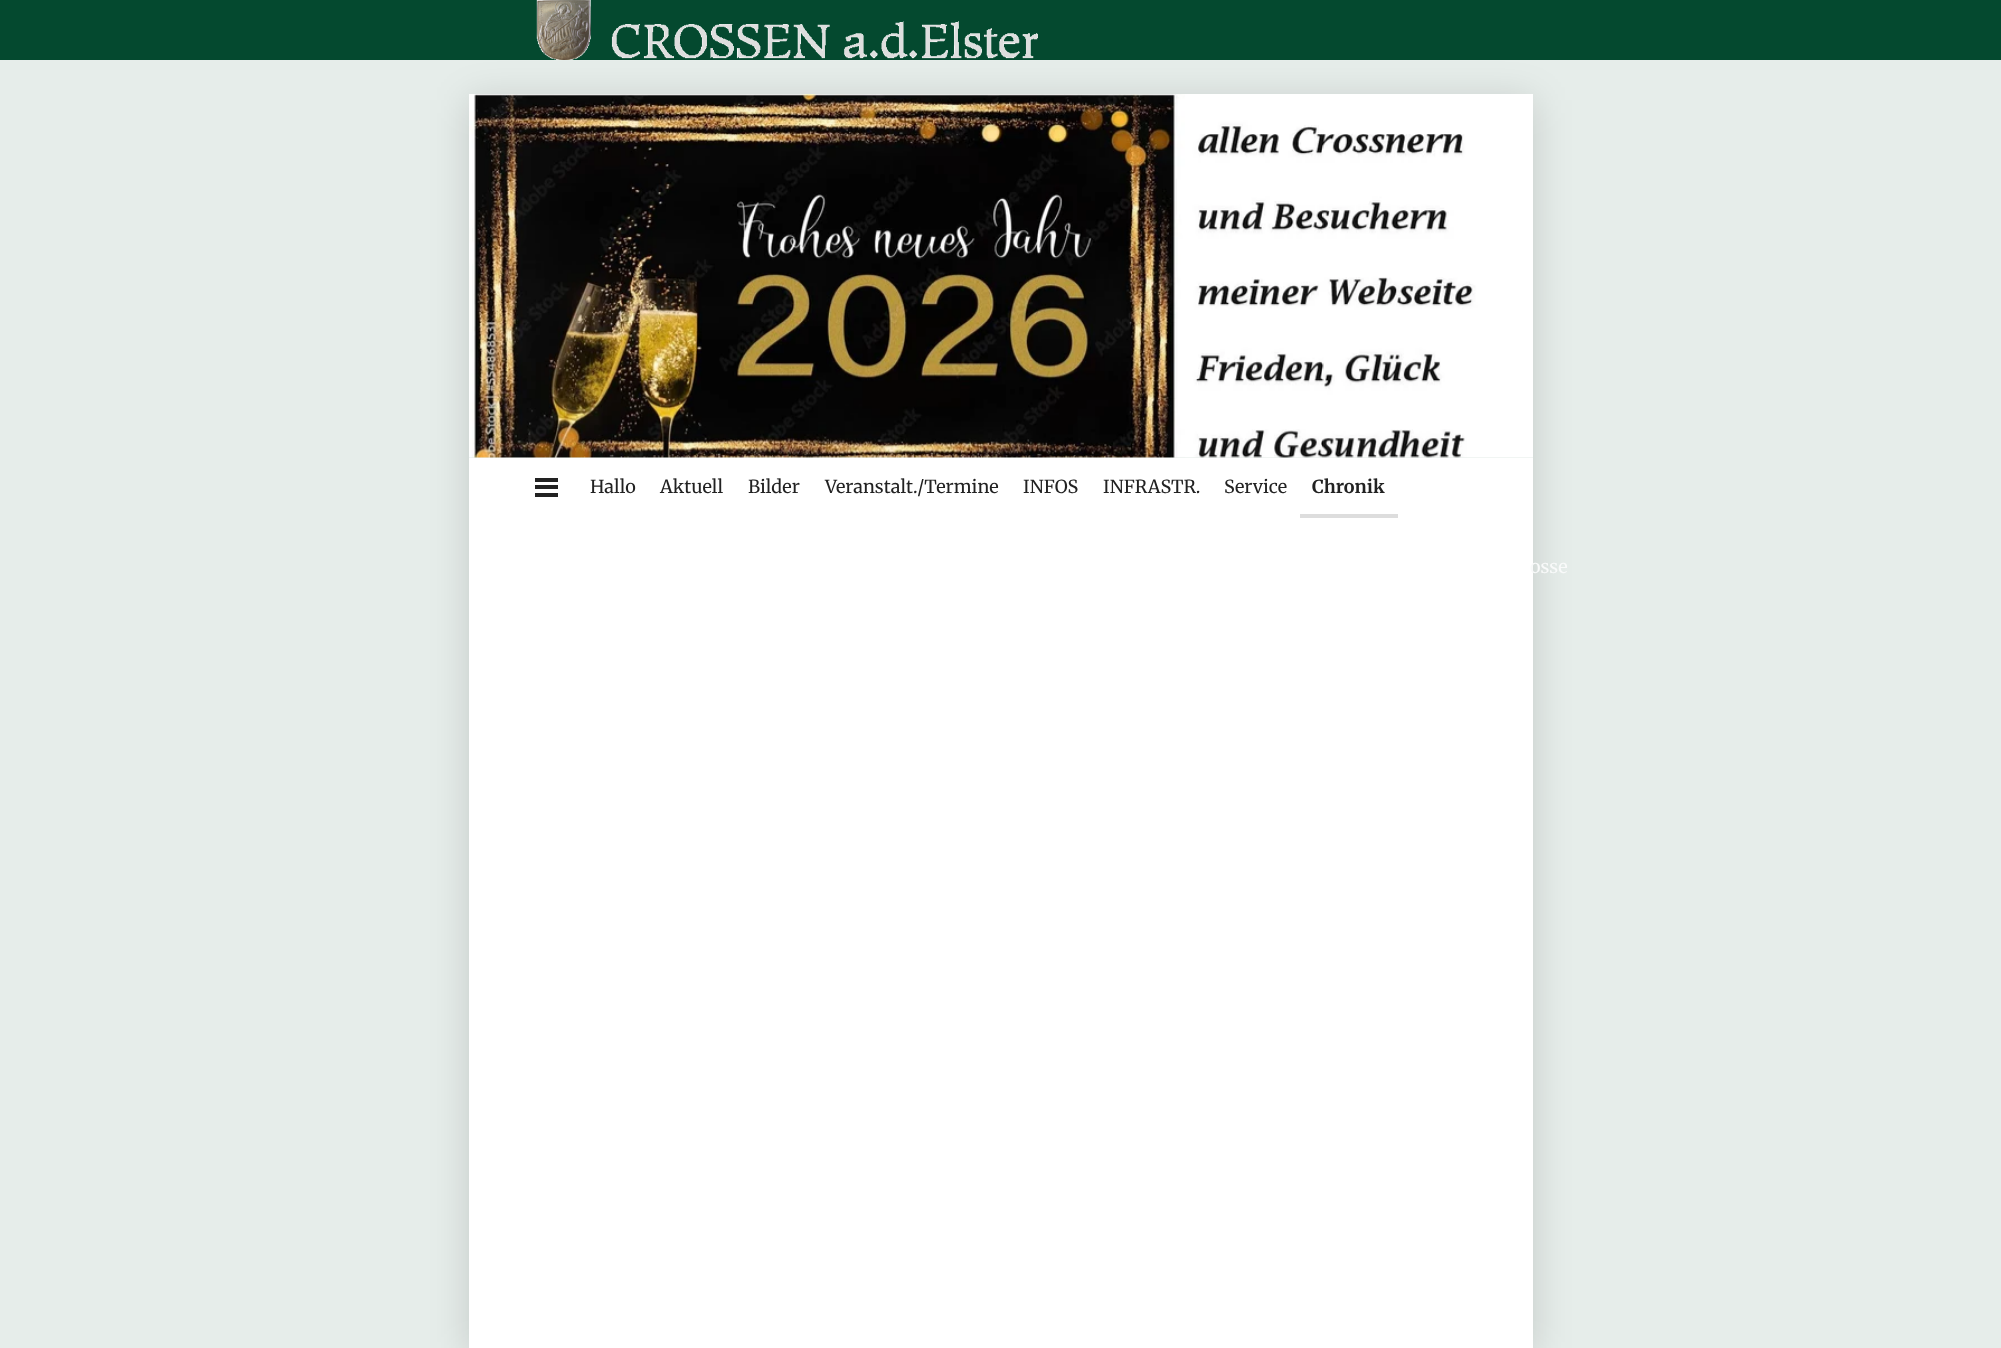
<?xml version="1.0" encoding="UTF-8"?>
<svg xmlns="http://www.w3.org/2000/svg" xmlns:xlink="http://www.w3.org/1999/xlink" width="2001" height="1348">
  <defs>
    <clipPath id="clip1"><path d="M 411 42 h 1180 v 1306 h -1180 z m 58 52 h 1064 v 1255 h -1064 z" clip-rule="evenodd" /></clipPath>
  </defs>
  <rect width="100%" height="100%" fill="#e6edea" />
  <rect x="469" y="518" width="1064" height="830" fill="#ffffff" />
  <g clip-path="url(#clip1)">
    <rect x="469" y="100" width="1064" height="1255" fill="#000000" fill-opacity="0.15" filter="blur(19px)" />
  </g>
  <rect width="2001" height="60" fill="#04492f" />
  <image x="536" y="0" width="502" height="60" xlink:href="image1.png" />
  <image x="469" y="94" width="1064" height="364" xlink:href="image2.png" />
  <rect x="469" y="458" width="1064" height="60" fill="#ffffff" />
  <rect x="535" y="478" width="23" height="4" fill="#222222" />
  <rect x="535" y="485" width="23" height="4" fill="#222222" />
  <rect x="535" y="493" width="23" height="4" fill="#222222" />
  <rect x="1300" y="514" width="98" height="4" fill="#dddddd" />
  <text x="590" y="493" style="font-family: Merriweather; font-size: 18px; fill: #222222">Hallo</text>
  <text x="660" y="493" style="font-family: Merriweather; font-size: 18px; fill: #222222">Aktuell</text>
  <text x="748" y="493" style="font-family: Merriweather; font-size: 18px; fill: #222222">Bilder</text>
  <text x="825" y="493" style="font-family: Merriweather; font-size: 18px; fill: #222222">Veranstalt./Termine</text>
  <text x="1023" y="493" style="font-family: Merriweather; font-size: 18px; fill: #222222">INFOS</text>
  <text x="1103" y="493" style="font-family: Merriweather; font-size: 18px; fill: #222222">INFRASTR.</text>
  <text x="1224" y="493" style="font-family: Merriweather; font-size: 18px; fill: #222222">Service</text>
  <text x="1312" y="493" style="font-family: Merriweather; font-size: 18px; font-weight: bold; fill: #222222">Chronik</text>
  <text x="1530" y="573" style="font-family: Merriweather; font-size: 18px; fill: #f9fafa">osse</text>
</svg>
